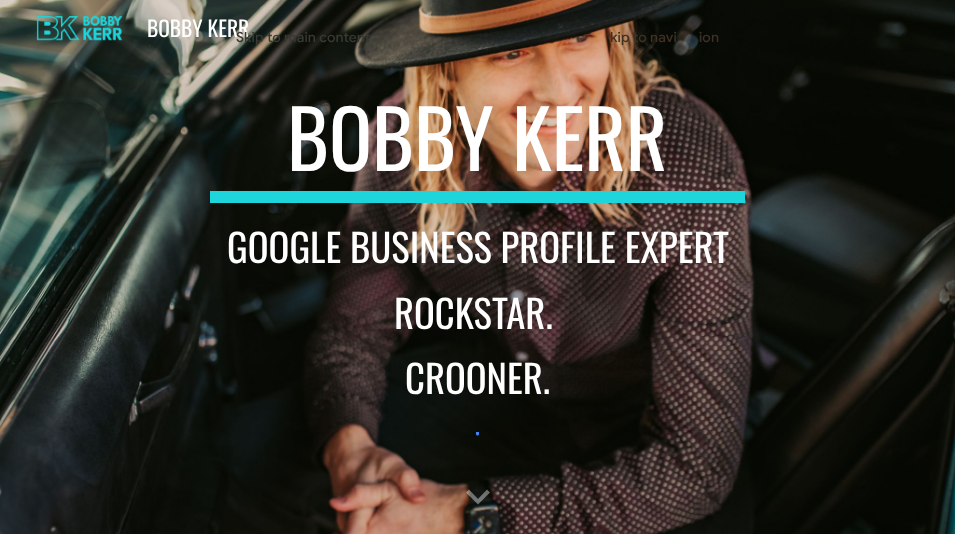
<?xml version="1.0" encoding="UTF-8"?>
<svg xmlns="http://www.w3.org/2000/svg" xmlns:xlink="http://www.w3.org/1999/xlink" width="955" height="534">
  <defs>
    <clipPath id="clip1"><rect x="463" y="432" width="14" height="28" /></clipPath>
    <clipPath id="clip2"><rect x="476" y="432" width="3" height="28" /></clipPath>
    <clipPath id="clip3"><rect x="477" y="432" width="14" height="28" /></clipPath>
  </defs>
  <rect width="100%" height="100%" fill="#ffffff" />
  <image x="0" y="0" width="955" height="534" xlink:href="image2.png" />
  <image x="36" y="15" width="87" height="26" xlink:href="image1.png" />
  <rect x="210" y="191" width="535" height="12" fill="#1dd5db" />
  <g clip-path="url(#clip1)">
    <path d="M 476.5 434 c 16.5 -1.5 18.5 23.5 2 25" fill="none" stroke="#4184f2" stroke-width="3" />
  </g>
  <g clip-path="url(#clip2)">
    <path d="M 469 455 c -10 -10.5 3 -28 15 -19.5 c 3 2 4.5 5 5.5 8 c 0.5 4 -0.5 8.5 -3.5 11.5" fill="none" stroke="#4184f2" stroke-width="3" />
  </g>
  <g clip-path="url(#clip3)">
    <path d="M 476.5 459 c -16.5 -1.5 -14.5 -26.5 2 -25 m -2 25 c -16.5 -1.5 -14.5 -26.5 2 -25 m -2 25 c -16.5 -1.5 -14.5 -26.5 2 -25 m -2 25 c -16.5 -1.5 -14.5 -26.5 2 -25" fill="none" stroke="#4184f2" stroke-width="3" />
  </g>
  <path d="M 469 489.5 l 9 9.5 l 9 -9.5 l 3 3 l -12 12 l -12 -12 z" fill="#ffffff" fill-opacity="0.4" />
  <text x="147" y="37" style="font-family: Oswald; font-size: 21.5px; fill: #ffffff">BOBBY KERR</text>
  <text x="287" y="171" style="font-family: Oswald; font-size: 80px; fill: #ffffff">BOBBY KERR</text>
  <text x="227" y="263" style="font-family: Oswald; font-size: 38.7px; fill: #ffffff">GOOGLE BUSINESS PROFILE EXPERT</text>
  <text x="394" y="329" style="font-family: Oswald; font-size: 38.7px; fill: #ffffff">ROCKSTAR.</text>
  <text x="405" y="394" style="font-family: Oswald; font-size: 38.7px; fill: #ffffff">CROONER.</text>
  <text x="236" y="42" style="font-family: Google Sans; font-size: 14px; font-weight: 500; letter-spacing: 0.1px; fill: #383931">Skip to main content</text>
  <text x="610" y="42" style="font-family: Google Sans; font-size: 14px; font-weight: 500; letter-spacing: 0.1px; fill: #3f3124">kip to navi</text>
  <text x="699" y="42" style="font-family: Google Sans; font-size: 14px; font-weight: 500; letter-spacing: 0.1px; fill: #3f3124">ion</text>
</svg>
